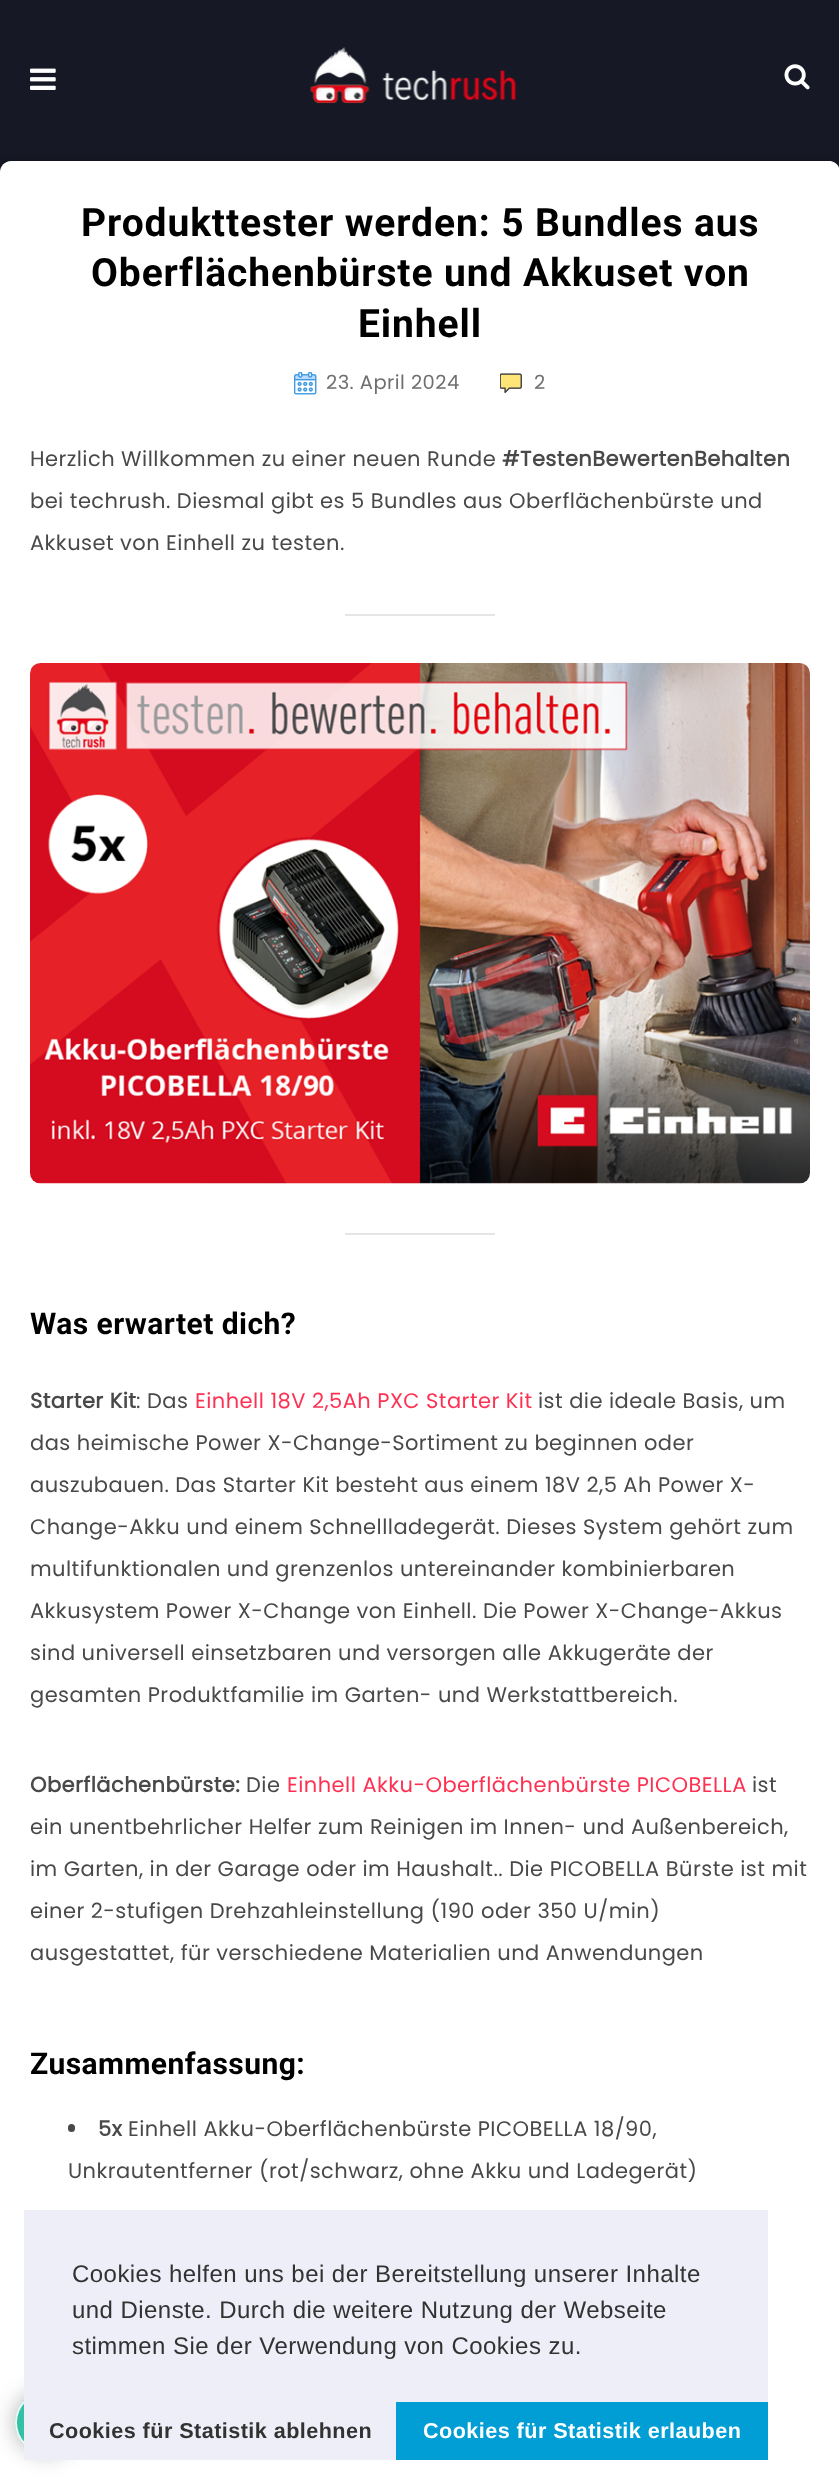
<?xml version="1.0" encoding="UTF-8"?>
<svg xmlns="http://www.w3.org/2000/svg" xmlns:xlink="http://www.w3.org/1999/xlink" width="839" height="2483">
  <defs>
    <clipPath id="clip1"><path d="M 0 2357 h 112 v 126 h -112 z m 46.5 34 c 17.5 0 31.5 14 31.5 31.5 c 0 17.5 -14 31.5 -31.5 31.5 c -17.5 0 -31.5 -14 -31.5 -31.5 c 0 -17.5 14 -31.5 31.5 -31.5 z" clip-rule="evenodd" /></clipPath>
  </defs>
  <rect width="100%" height="100%" fill="#161925" />
  <image x="30" y="68" width="26" height="22" xlink:href="image1.png" />
  <image x="310" y="47" width="207" height="57" xlink:href="image2.png" />
  <image x="784" y="64" width="26" height="26" xlink:href="image3.png" />
  <rect y="161" width="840" height="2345" rx="11" fill="#000000" fill-opacity="0.3" filter="blur(4px)" />
  <path d="M 11 161 h 818 c 6 0 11 5 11 11 v 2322 h -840 v -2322 c 0 -6 5 -11 11 -11 z" fill="#ffffff" />
  <image x="294" y="372" width="23" height="23" xlink:href="image4.png" />
  <image x="500" y="373" width="22" height="20" xlink:href="image5.png" />
  <rect x="345" y="614" width="150" height="2" fill="#e5e5e5" />
  <image x="30" y="663" width="780" height="521" xlink:href="image6.png" />
  <rect x="345" y="1233" width="150" height="2" fill="#e5e5e5" />
  <rect x="68" y="2124" width="7" height="8" rx="3.5" fill="#494949" />
  <g clip-path="url(#clip1)">
    <rect x="15" y="2391" width="63" height="63" rx="31.5" fill="#aaaaaa" fill-opacity="0.9" filter="blur(11px)" />
  </g>
  <circle cx="46.5" cy="2422.5" r="31.5" fill="#1db99a" fill-opacity="0.9" />
  <circle cx="46.5" cy="2422.5" r="30.5" fill="none" stroke="#ffffff" stroke-opacity="0.9" stroke-width="2" />
  <rect x="24" y="2210" width="744" height="250" fill="#eeeef8" />
  <rect x="396" y="2402" width="372" height="58" fill="#009ed4" />
  <text x="81" y="236" style="font-family: Roboto; font-size: 39px; font-weight: bold; letter-spacing: 0.9px; fill: #000000">Produkttester werden: 5 Bundles aus</text>
  <text x="91" y="286" style="font-family: Roboto; font-size: 39px; font-weight: bold; letter-spacing: 0.9px; fill: #000000">Oberflächenbürste und Akkuset von</text>
  <text x="358" y="337" style="font-family: Roboto; font-size: 39px; font-weight: bold; letter-spacing: 0.9px; fill: #000000">Einhell</text>
  <text x="326" y="389" style="font-family: Poppins; font-size: 19.5px; letter-spacing: 0.45px; fill: #6f6f6f">23. April 2024</text>
  <text x="534" y="389" style="font-family: Poppins; font-size: 19.5px; letter-spacing: 0.45px; fill: #6f6f6f">2</text>
  <text x="30" y="466" style="font-family: Poppins; font-size: 21px; letter-spacing: 0.45px; fill: #494949">Herzlich Willkommen zu einer neuen Runde</text>
  <text x="502" y="466" style="font-family: Poppins; font-size: 21px; font-weight: bold; letter-spacing: 0.45px; fill: #494949">#TestenBewertenBehalten</text>
  <text x="30" y="508" style="font-family: Poppins; font-size: 21px; letter-spacing: 0.45px; fill: #494949">bei techrush. Diesmal gibt es 5 Bundles aus Oberflächenbürste und</text>
  <text x="30" y="550" style="font-family: Poppins; font-size: 21px; letter-spacing: 0.45px; fill: #494949">Akkuset von Einhell zu testen.</text>
  <text x="30" y="1334" style="font-family: Roboto; font-size: 30px; font-weight: bold; letter-spacing: 0.45px; fill: #000000">Was erwartet dich?</text>
  <text x="30" y="1408" style="font-family: Poppins; font-size: 21px; font-weight: bold; letter-spacing: 0.45px; fill: #494949">Starter Kit</text>
  <text x="136" y="1408" style="font-family: Poppins; font-size: 21px; letter-spacing: 0.45px; fill: #494949">: Das</text>
  <text x="195" y="1408" style="font-family: Poppins; font-size: 21px; letter-spacing: 0.45px; fill: #ff3152">Einhell 18V 2,5Ah PXC Starter Kit</text>
  <text x="538" y="1408" style="font-family: Poppins; font-size: 21px; letter-spacing: 0.45px; fill: #494949">ist die ideale Basis, um</text>
  <text x="30" y="1450" style="font-family: Poppins; font-size: 21px; letter-spacing: 0.45px; fill: #494949">das heimische Power X-Change-Sortiment zu beginnen oder</text>
  <text x="30" y="1492" style="font-family: Poppins; font-size: 21px; letter-spacing: 0.45px; fill: #494949">auszubauen. Das Starter Kit besteht aus einem 18V 2,5 Ah Power X-</text>
  <text x="30" y="1534" style="font-family: Poppins; font-size: 21px; letter-spacing: 0.45px; fill: #494949">Change-Akku und einem Schnellladegerät. Dieses System gehört zum</text>
  <text x="30" y="1576" style="font-family: Poppins; font-size: 21px; letter-spacing: 0.45px; fill: #494949">multifunktionalen und grenzenlos untereinander kombinierbaren</text>
  <text x="30" y="1618" style="font-family: Poppins; font-size: 21px; letter-spacing: 0.45px; fill: #494949">Akkusystem Power X-Change von Einhell. Die Power X-Change-Akkus</text>
  <text x="30" y="1660" style="font-family: Poppins; font-size: 21px; letter-spacing: 0.45px; fill: #494949">sind universell einsetzbaren und versorgen alle Akkugeräte der</text>
  <text x="30" y="1702" style="font-family: Poppins; font-size: 21px; letter-spacing: 0.45px; fill: #494949">gesamten Produktfamilie im Garten- und Werkstattbereich.</text>
  <text x="30" y="1792" style="font-family: Poppins; font-size: 21px; font-weight: bold; letter-spacing: 0.45px; fill: #494949">Oberflächenbürste:</text>
  <text x="246" y="1792" style="font-family: Poppins; font-size: 21px; letter-spacing: 0.45px; fill: #494949">Die</text>
  <text x="287" y="1792" style="font-family: Poppins; font-size: 21px; letter-spacing: 0.45px; fill: #ff3152">Einhell Akku-Oberflächenbürste PICOBELLA</text>
  <text x="752" y="1792" style="font-family: Poppins; font-size: 21px; letter-spacing: 0.45px; fill: #494949">ist</text>
  <text x="30" y="1834" style="font-family: Poppins; font-size: 21px; letter-spacing: 0.45px; fill: #494949">ein unentbehrlicher Helfer zum Reinigen im Innen- und Außenbereich,</text>
  <text x="30" y="1876" style="font-family: Poppins; font-size: 21px; letter-spacing: 0.45px; fill: #494949">im Garten, in der Garage oder im Haushalt.. Die PICOBELLA Bürste ist mit</text>
  <text x="30" y="1918" style="font-family: Poppins; font-size: 21px; letter-spacing: 0.45px; fill: #494949">einer 2-stufigen Drehzahleinstellung (190 oder 350 U/min)</text>
  <text x="30" y="1960" style="font-family: Poppins; font-size: 21px; letter-spacing: 0.45px; fill: #494949">ausgestattet, für verschiedene Materialien und Anwendungen</text>
  <text x="30" y="2074" style="font-family: Roboto; font-size: 30px; font-weight: bold; letter-spacing: 0.45px; fill: #000000">Zusammenfassung:</text>
  <text x="98" y="2136" style="font-family: Poppins; font-size: 21px; font-weight: bold; letter-spacing: 0.45px; fill: #494949">5x</text>
  <text x="128" y="2136" style="font-family: Poppins; font-size: 21px; letter-spacing: 0.45px; fill: #494949">Einhell Akku-Oberflächenbürste PICOBELLA 18/90,</text>
  <text x="68" y="2178" style="font-family: Poppins; font-size: 21px; letter-spacing: 0.45px; fill: #494949">Unkrautentferner (rot/schwarz, ohne Akku und Ladegerät)</text>
  <text x="72" y="2282" style="font-family: Liberation Sans; font-size: 24px; letter-spacing: 0.45px; fill: #333232">Cookies helfen uns bei der Bereitstellung unserer Inhalte</text>
  <text x="72" y="2318" style="font-family: Liberation Sans; font-size: 24px; letter-spacing: 0.45px; fill: #333232">und Dienste. Durch die weitere Nutzung der Webseite</text>
  <text x="72" y="2354" style="font-family: Liberation Sans; font-size: 24px; letter-spacing: 0.45px; fill: #333232">stimmen Sie der Verwendung von Cookies zu.</text>
  <text x="49" y="2438" style="font-family: Liberation Sans; font-size: 21.6px; font-weight: bold; letter-spacing: 0.45px; fill: #333232">Cookies für Statistik ablehnen</text>
  <text x="423" y="2438" style="font-family: Liberation Sans; font-size: 21.6px; font-weight: bold; letter-spacing: 0.45px; fill: #ffffff">Cookies für Statistik erlauben</text>
</svg>
